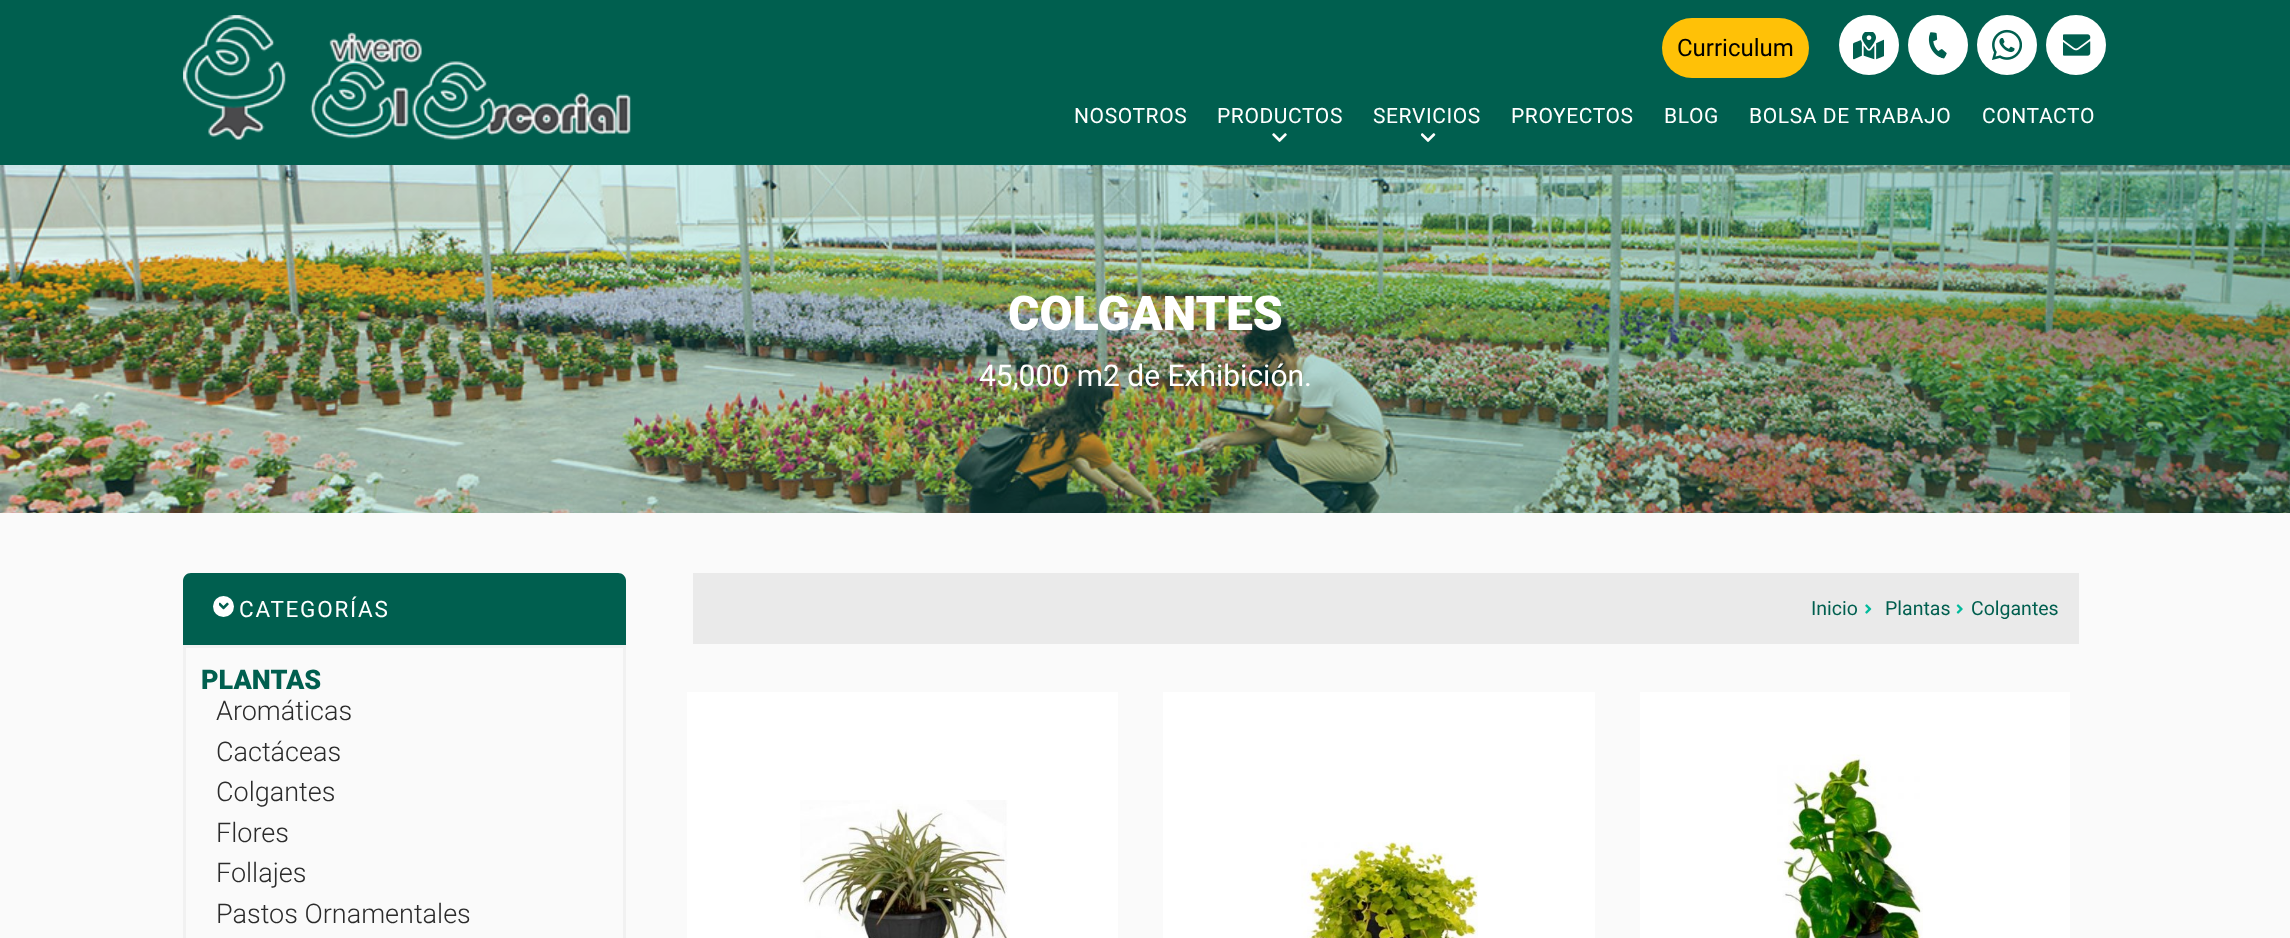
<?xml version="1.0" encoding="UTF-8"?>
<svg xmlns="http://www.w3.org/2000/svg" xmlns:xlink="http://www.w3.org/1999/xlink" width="2290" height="938">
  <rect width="100%" height="100%" fill="#005f4f" />
  <image x="183" y="15" width="448" height="125" xlink:href="image1.png" />
  <rect x="1662" y="18" width="147" height="60" rx="30" fill="#ffc107" />
  <circle cx="1869" cy="45" r="30" fill="#ffffff" />
  <image x="1853" y="32" width="31" height="28" xlink:href="image2.png" />
  <circle cx="1938" cy="45" r="30" fill="#ffffff" />
  <image x="1928" y="32" width="19" height="27" xlink:href="image3.png" />
  <circle cx="2007" cy="45" r="30" fill="#ffffff" />
  <image x="1992" y="29" width="30" height="31" xlink:href="image4.png" />
  <circle cx="2076" cy="45" r="30" fill="#ffffff" />
  <image x="2063" y="34" width="28" height="22" xlink:href="image5.png" />
  <image x="1272" y="133" width="15" height="9" xlink:href="image6.png" />
  <image x="1421" y="133" width="15" height="9" xlink:href="image7.png" />
  <image x="0" y="165" width="2290" height="348" xlink:href="image8.png" />
  <rect y="513" width="2290" height="425" fill="#fafafa" />
  <path d="M 191 573 h 427 c 4.5 0 8 3.5 8 8 v 64 h -443 v -64 c 0 -4.5 3.5 -8 8 -8 z" fill="#005f4f" />
  <circle cx="223.5" cy="606.5" r="10.5" fill="#ffffff" />
  <image x="219" y="602" width="10" height="8" xlink:href="image9.png" />
  <rect x="184.5" y="646.5" width="440" height="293" fill="none" stroke="#f1f1f1" stroke-width="3" />
  <rect x="693" y="573" width="1386" height="71" fill="#eaeaea" />
  <image x="1865" y="604" width="7" height="10" xlink:href="image10.png" />
  <image x="1956" y="604" width="7" height="10" xlink:href="image11.png" />
  <rect x="687" y="692" width="431" height="246" fill="#ffffff" />
  <image x="800" y="800" width="210" height="138" xlink:href="image12.png" />
  <rect x="1163" y="692" width="432" height="246" fill="#ffffff" />
  <image x="1301" y="840" width="177" height="98" xlink:href="image13.png" />
  <rect x="1640" y="692" width="430" height="246" fill="#ffffff" />
  <image x="1777" y="754" width="146" height="184" xlink:href="image14.png" />
  <text x="1677" y="56" style="font-family: Roboto; font-size: 24px; fill: #000000">Curriculum</text>
  <text x="1074" y="123" style="font-family: Roboto; font-size: 21px; letter-spacing: 0.6px; fill: #ffffff">NOSOTROS</text>
  <text x="1217" y="123" style="font-family: Roboto; font-size: 21px; letter-spacing: 0.6px; fill: #ffffff">PRODUCTOS</text>
  <text x="1373" y="123" style="font-family: Roboto; font-size: 21px; letter-spacing: 0.6px; fill: #ffffff">SERVICIOS</text>
  <text x="1511" y="123" style="font-family: Roboto; font-size: 21px; letter-spacing: 0.6px; fill: #ffffff">PROYECTOS</text>
  <text x="1664" y="123" style="font-family: Roboto; font-size: 21px; letter-spacing: 0.6px; fill: #ffffff">BLOG</text>
  <text x="1749" y="123" style="font-family: Roboto; font-size: 21px; letter-spacing: 0.6px; fill: #ffffff">BOLSA DE TRABAJO</text>
  <text x="1982" y="123" style="font-family: Roboto; font-size: 21px; letter-spacing: 0.6px; fill: #ffffff">CONTACTO</text>
  <text x="1008" y="330" style="font-family: Roboto; font-size: 48px; font-weight: 900; fill: #ffffff">COLGANTES</text>
  <text x="979" y="386" style="font-family: Roboto; font-size: 30px; fill: #ffffff">45,000 m2 de Exhibición.</text>
  <text x="239" y="617" style="font-family: Roboto; font-size: 22.5px; letter-spacing: 1.75px; fill: #ffffff">CATEGORÍAS</text>
  <text x="201" y="689" style="font-family: Roboto; font-size: 27px; font-weight: 900; fill: #005f4f">PLANTAS</text>
  <text x="216" y="720" style="font-family: Roboto; font-size: 27px; font-weight: 300; fill: #2b2b2b">Aromáticas</text>
  <text x="216" y="761" style="font-family: Roboto; font-size: 27px; font-weight: 300; fill: #2b2b2b">Cactáceas</text>
  <text x="216" y="801" style="font-family: Roboto; font-size: 27px; font-weight: 300; fill: #2b2b2b">Colgantes</text>
  <text x="216" y="842" style="font-family: Roboto; font-size: 27px; font-weight: 300; fill: #2b2b2b">Flores</text>
  <text x="216" y="882" style="font-family: Roboto; font-size: 27px; font-weight: 300; fill: #2b2b2b">Follajes</text>
  <text x="216" y="923" style="font-family: Roboto; font-size: 27px; font-weight: 300; fill: #2b2b2b">Pastos Ornamentales</text>
  <text x="1811" y="615" style="font-family: Roboto; font-size: 19.5px; fill: #005f4f">Inicio</text>
  <text x="1885" y="615" style="font-family: Roboto; font-size: 19.5px; fill: #005f4f">Plantas</text>
  <text x="1971" y="615" style="font-family: Roboto; font-size: 19.5px; fill: #005f4f">Colgantes</text>
</svg>
